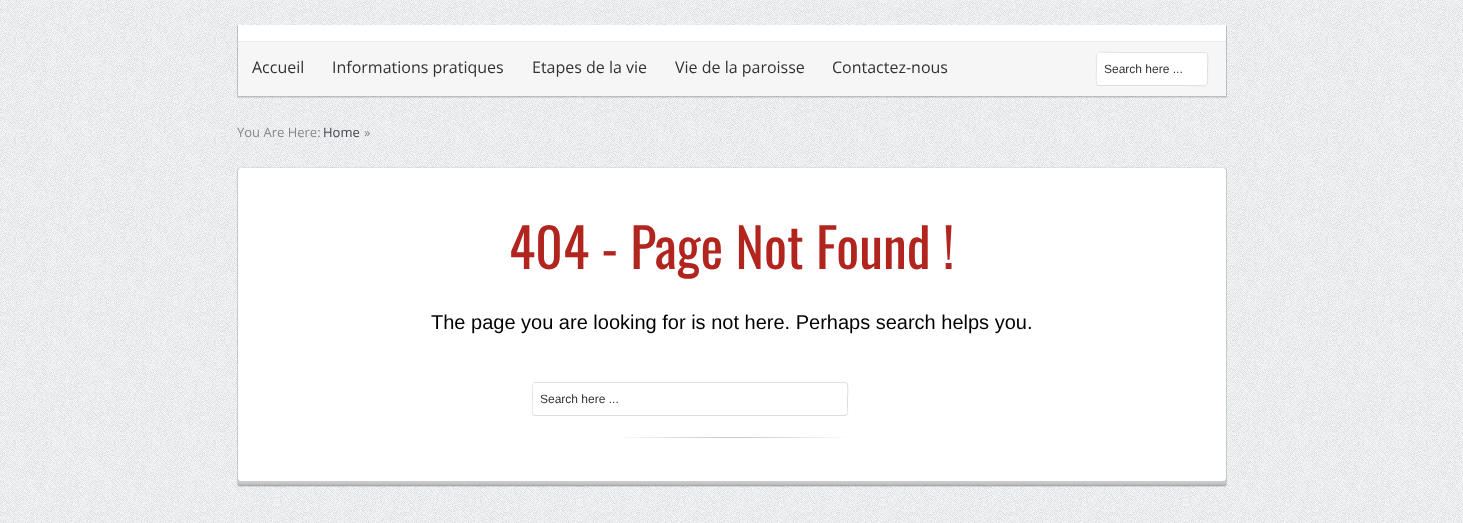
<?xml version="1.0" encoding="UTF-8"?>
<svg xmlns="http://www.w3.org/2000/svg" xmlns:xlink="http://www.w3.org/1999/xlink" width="1463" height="523">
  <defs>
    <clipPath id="clip1"><rect x="532" y="382" width="400" height="34" /></clipPath>
  </defs>
  <rect width="100%" height="100%" fill="#ffffff" />
  <image x="0" y="0" width="1463" height="523" xlink:href="image1.png" />
  <rect x="237" y="26" width="990" height="72" fill="#000000" fill-opacity="0.1" filter="blur(0.5px)" />
  <rect x="238" y="25" width="988" height="16" fill="#ffffff" />
  <path d="M 1227 25 v 72 l -1 -1 v -71 z" fill="#000000" fill-opacity="0.1" />
  <path d="M 1227 97 h -990 l 1 -1 h 988 z" fill="#000000" fill-opacity="0.1" />
  <path d="M 237 97 v -72 h 1 v 71 z" fill="#000000" fill-opacity="0.1" />
  <rect x="238" y="42" width="988" height="54" fill="#f6f6f6" />
  <rect x="238" y="41" width="988" height="1" fill="#eaeaea" />
  <rect x="1096" y="52" width="112" height="34" rx="3" fill="#ffffff" />
  <path d="M 1207 53 c 1.5 2 0.5 13.5 0.5 16 c 0 21 3.5 16.5 -20 16.5 h -88.5 l -2 -0.5" fill="none" stroke="#dddddd" />
  <path d="M 1097 85 c -1.5 -2 -0.5 -13.5 -0.5 -16 c 0 -21 -3.5 -16.5 20 -16.5 h 88.5 l 2 0.5" fill="none" stroke="#e2e2e2" />
  <rect x="237" y="168" width="990" height="319" rx="3" fill="#000000" fill-opacity="0.1" filter="blur(0.5px)" />
  <image x="238" y="478" width="988" height="7" xlink:href="image2.png" />
  <path d="M 1226 485 l -2 0.5 h -984 l -2 -0.5" fill="none" stroke="#000000" stroke-opacity="0.2" />
  <path d="M 238 485 l -0.5 -2 v -313 l 0.5 -2 l 2 -0.5 h 984 l 2 0.5 l 0.5 2 v 313 l -0.5 2" fill="none" stroke="#000000" stroke-opacity="0.05" />
  <rect x="238.5" y="168.5" width="987" height="312" rx="2.5" fill="#ffffff" stroke="#ffffff" />
  <path d="M 847 383 c 1.5 2 0.5 13.5 0.5 16 v 9.5 c 0 1.5 1 7 -2.5 7 h -310 l -2 -0.5" fill="none" stroke="#dddddd" />
  <g clip-path="url(#clip1)">
    <path d="M 533 415 c -1.5 -2 -0.5 -13.5 -0.5 -16 v -9.5 c 0 -1.5 -1 -7 2.5 -7 h 310 l 2 0.5" fill="none" stroke="#e2e2e2" />
  </g>
  <image x="621" y="437" width="223" height="1" xlink:href="image3.png" />
  <text x="252" y="73" style="font-family: Open Sans; font-size: 16px; fill: #333333">Accueil</text>
  <text x="332" y="73" style="font-family: Open Sans; font-size: 16px; fill: #333333">Informations pratiques</text>
  <text x="532" y="73" style="font-family: Open Sans; font-size: 16px; fill: #333333">Etapes de la vie</text>
  <text x="675" y="73" style="font-family: Open Sans; font-size: 16px; fill: #333333">Vie de la paroisse</text>
  <text x="832" y="73" style="font-family: Open Sans; font-size: 16px; fill: #333333">Contactez-nous</text>
  <text x="1104" y="73" style="font-family: Liberation Sans; font-size: 12px; fill: #333333">Search here ...</text>
  <text x="237" y="137" style="font-family: Open Sans; font-size: 13px; fill: #888888">You Are Here:</text>
  <text x="323" y="137" style="font-family: Open Sans; font-size: 13px; fill: #40454d">Home</text>
  <text x="364" y="137" style="font-family: Open Sans; font-size: 13px; fill: #888888">»</text>
  <text x="509" y="269" style="font-family: Oswald; font-size: 54px; fill: #b2251f">404 - Page Not Found !</text>
  <text x="431" y="329" style="font-family: Liberation Sans; font-size: 20px; fill: #000000">The page you are looking for is not here. Perhaps search helps you.</text>
  <text x="540" y="403" style="font-family: Liberation Sans; font-size: 12px; fill: #333333">Search here ...</text>
</svg>
